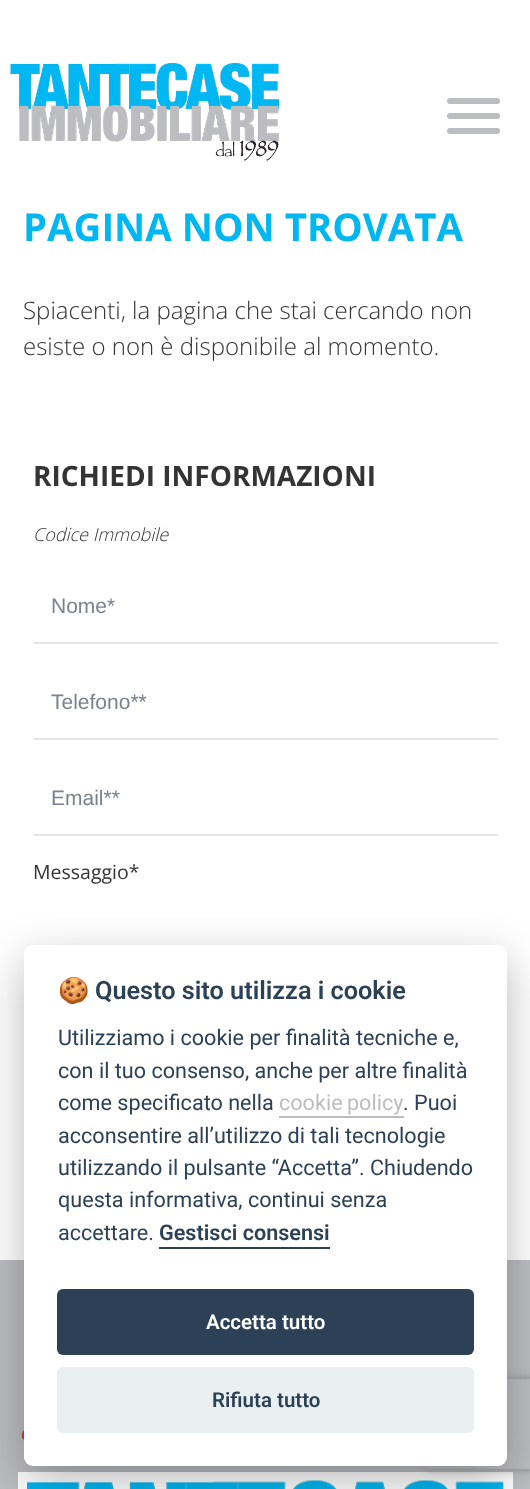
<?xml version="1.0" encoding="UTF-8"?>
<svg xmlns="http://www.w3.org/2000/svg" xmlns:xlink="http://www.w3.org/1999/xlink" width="530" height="1489">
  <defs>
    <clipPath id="clip1"><path d="M 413 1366 h 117 v 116 h -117 z m 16 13 h 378 c 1.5 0 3 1.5 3 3 v 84 c 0 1.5 -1.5 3 -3 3 h -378 c -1.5 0 -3 -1.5 -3 -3 v -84 c 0 -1.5 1.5 -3 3 -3 z" clip-rule="evenodd" /></clipPath>
  </defs>
  <rect width="100%" height="100%" fill="#ffffff" />
  <image x="10" y="63" width="269" height="98" xlink:href="image1.png" />
  <rect x="447" y="113" width="53" height="6" rx="3" fill="#bcbdc0" />
  <rect x="447" y="98" width="53" height="6" rx="3" fill="#bcbdc0" />
  <rect x="447" y="128" width="53" height="6" rx="3" fill="#bcbdc0" />
  <rect x="33" y="642" width="465" height="2" fill="#e6e6e6" />
  <rect x="33" y="738" width="465" height="2" fill="#e6e6e6" />
  <rect x="33" y="834" width="465" height="2" fill="#e6e6e6" />
  <rect y="1260" width="530" height="229" fill="#bcbdc0" />
  <image x="21" y="1430" width="3" height="11" xlink:href="image2.png" />
  <rect x="18" y="1472" width="495" height="17" fill="#ffffff" />
  <image x="27" y="1480" width="477" height="9" xlink:href="image3.png" />
  <rect x="24" y="960" width="483" height="521" rx="9" fill="#020203" fill-opacity="0.28" filter="blur(22.5px)" />
  <g clip-path="url(#clip1)">
    <rect x="426" y="1379" width="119" height="90" rx="3" fill="#808080" filter="blur(4px)" />
  </g>
  <rect x="24" y="945" width="483" height="521" rx="9" fill="#ffffff" />
  <rect x="279" y="1116" width="125" height="2" fill="#bcbdc0" />
  <rect x="159" y="1247" width="171" height="2" fill="#2d4156" />
  <rect x="57" y="1289" width="417" height="66" rx="6" fill="#2d4156" />
  <rect x="57" y="1367" width="417" height="66" rx="6" fill="#eaeff2" />
  <text x="23" y="241" style="font-family: Open Sans; font-size: 38.4px; font-weight: bold; fill: #00b7f1">PAGINA NON TROVATA</text>
  <text x="23" y="319" style="font-family: Open Sans; font-size: 24px; font-weight: 300; fill: #343434">Spiacenti, la pagina che stai cercando non</text>
  <text x="23" y="355" style="font-family: Open Sans; font-size: 24px; font-weight: 300; fill: #343434">esiste o non è disponibile al momento.</text>
  <text x="33" y="486" style="font-family: Open Sans; font-size: 28px; font-weight: bold; fill: #343434">RICHIEDI INFORMAZIONI</text>
  <text x="33" y="541" style="font-family: Open Sans; font-size: 18px; font-weight: 300; font-style: italic; fill: #343434">Codice Immobile</text>
  <text x="51" y="613" style="font-family: Liberation Sans; font-size: 21px; fill: #7a828d">Nome*</text>
  <text x="51" y="709" style="font-family: Liberation Sans; font-size: 21px; fill: #7a828d">Telefono**</text>
  <text x="51" y="805" style="font-family: Liberation Sans; font-size: 21px; fill: #7a828d">Email**</text>
  <text x="33" y="879" style="font-family: Open Sans; font-size: 19.5px; fill: #343434">Messaggio*</text>
  <text x="58" y="999" style="font-family: Noto Color Emoji; font-size: 25.25px; font-weight: bold; fill: #2d4156">🍪</text>
  <text x="95" y="999" style="font-family: Roboto; font-size: 25.25px; font-weight: 600; fill: #2d4156">Questo sito utilizza i cookie</text>
  <text x="58" y="1045" style="font-family: Roboto; font-size: 21.6px; fill: #2d4156">Utilizziamo i cookie per finalità tecniche e,</text>
  <text x="58" y="1078" style="font-family: Roboto; font-size: 21.6px; fill: #2d4156">con il tuo consenso, anche per altre finalità</text>
  <text x="58" y="1110" style="font-family: Roboto; font-size: 21.6px; fill: #2d4156">come specificato nella</text>
  <text x="279" y="1110" word-spacing="-1" style="font-family: Roboto; font-size: 21.6px; fill: #bcbdc0">cookie policy</text>
  <text x="403" y="1110" style="font-family: Roboto; font-size: 21.6px; fill: #2d4156">. Puoi</text>
  <text x="58" y="1143" style="font-family: Roboto; font-size: 21.6px; fill: #2d4156">acconsentire all’utilizzo di tali tecnologie</text>
  <text x="58" y="1175" style="font-family: Roboto; font-size: 21.6px; fill: #2d4156">utilizzando il pulsante “Accetta”. Chiudendo</text>
  <text x="58" y="1207" style="font-family: Roboto; font-size: 21.6px; fill: #2d4156">questa informativa, continui senza</text>
  <text x="58" y="1240" style="font-family: Roboto; font-size: 21.6px; fill: #2d4156">accettare.</text>
  <text x="159" y="1240" style="font-family: Roboto; font-size: 21.6px; font-weight: 600; fill: #2d4156">Gestisci consensi</text>
  <text x="206" y="1329" style="font-family: Roboto; font-size: 20.5px; font-weight: 600; fill: #ffffff">Accetta tutto</text>
  <text x="212" y="1407" style="font-family: Roboto; font-size: 20.5px; font-weight: 600; fill: #2d4156">Rifiuta tutto</text>
</svg>
